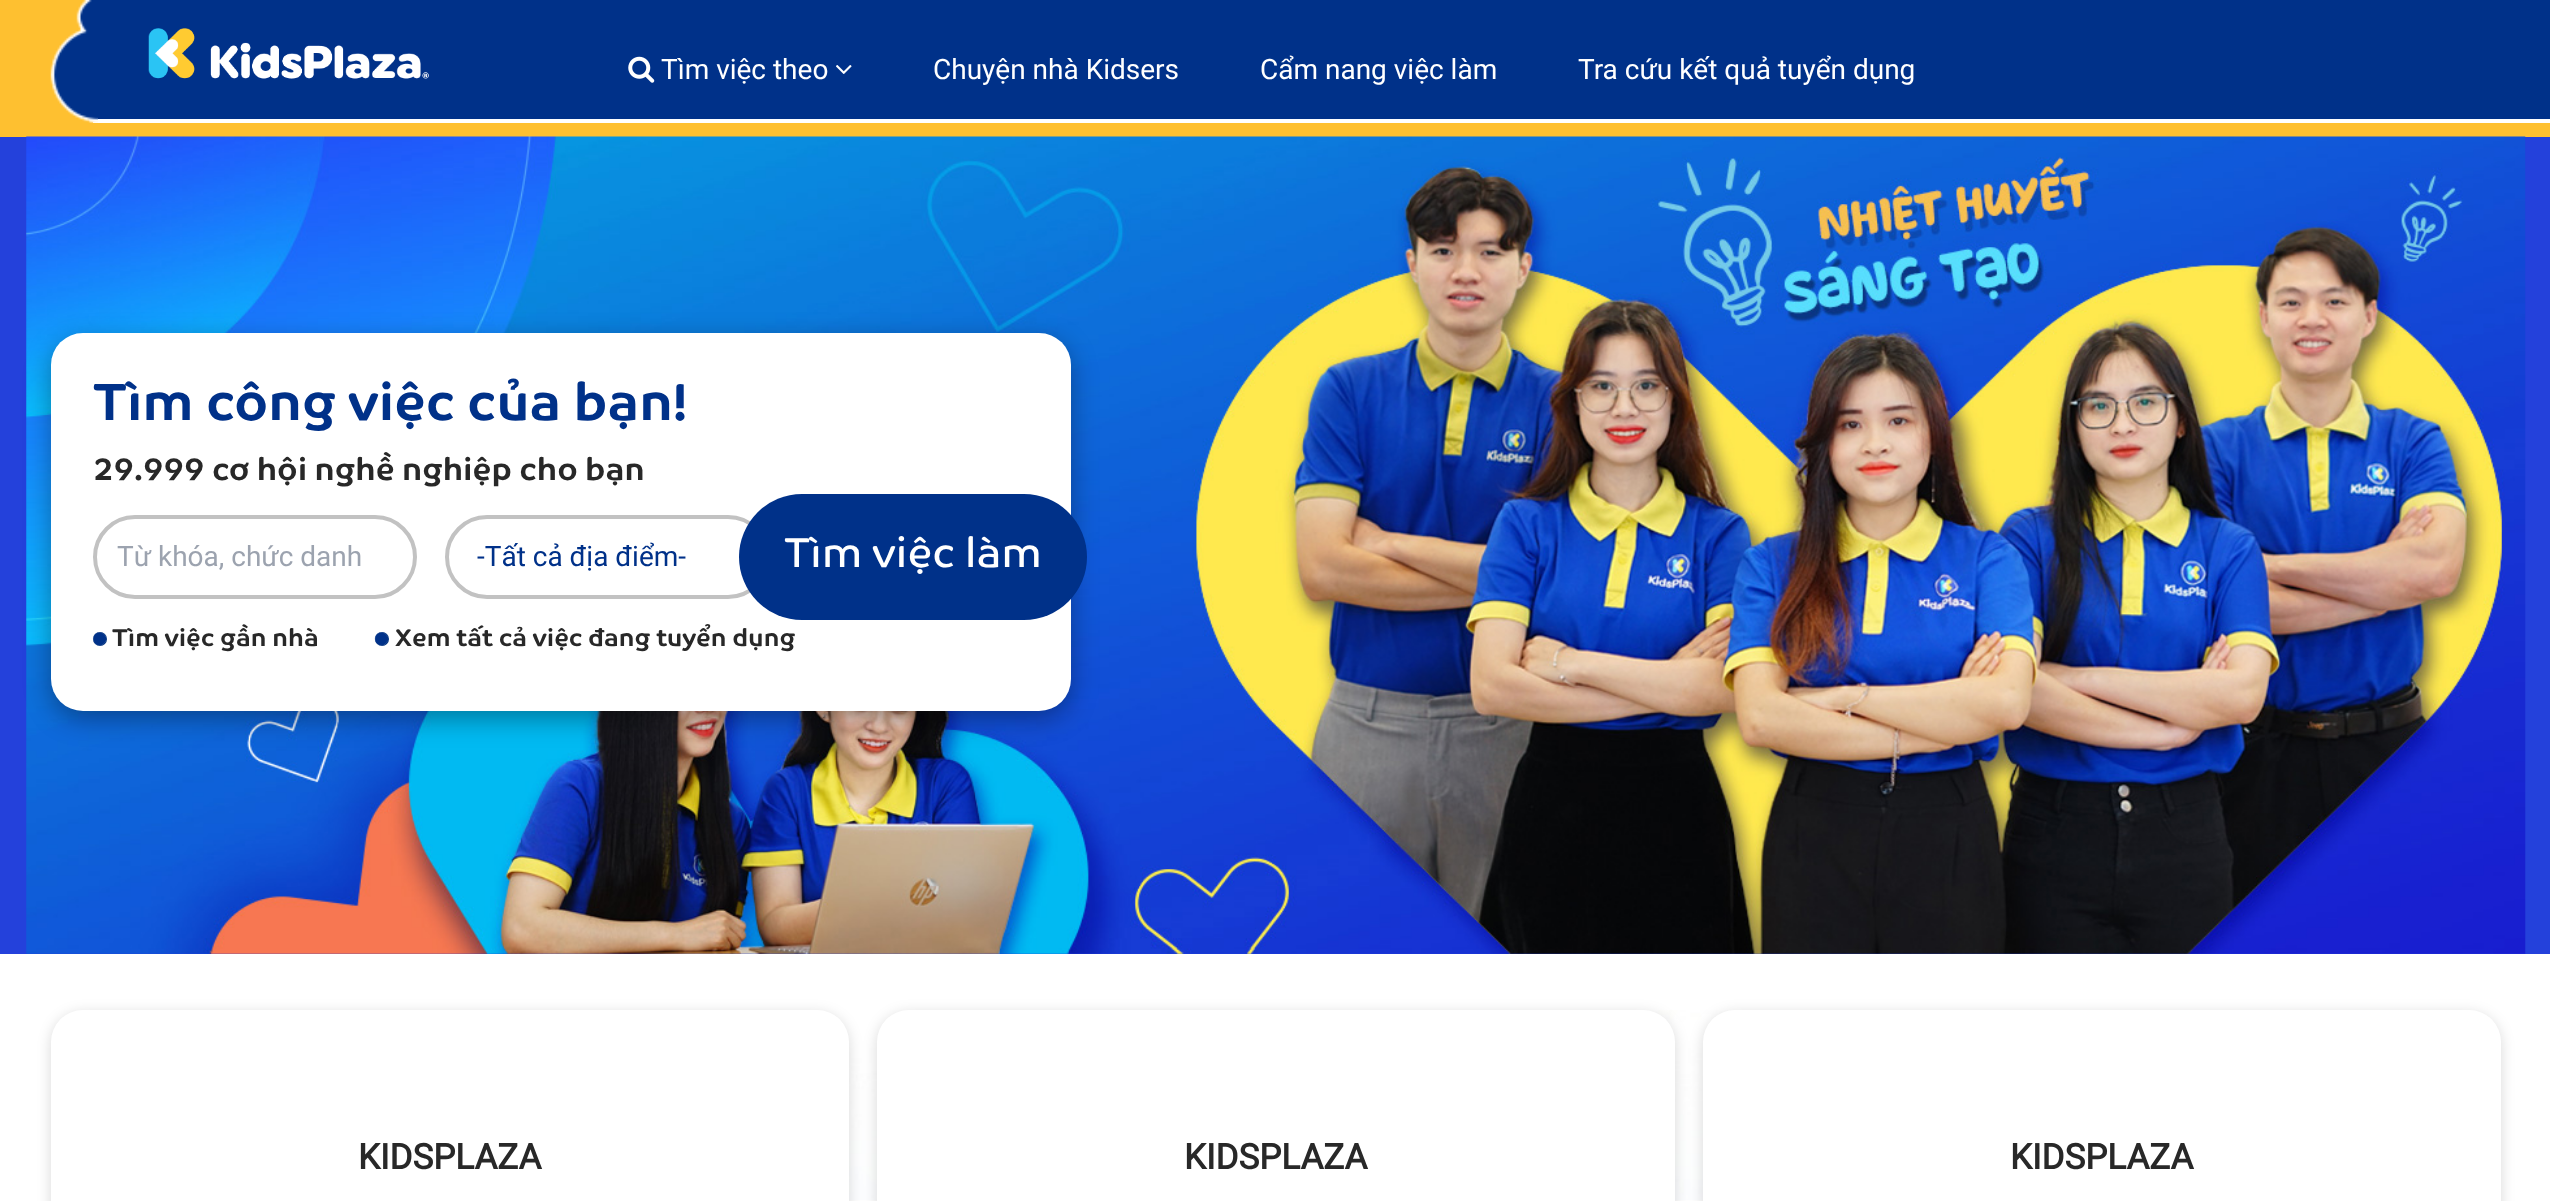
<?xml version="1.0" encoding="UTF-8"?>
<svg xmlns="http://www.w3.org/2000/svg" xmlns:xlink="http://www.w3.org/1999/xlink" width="2550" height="1201">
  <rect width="100%" height="100%" fill="#ffffff" />
  <rect width="2550" height="137" fill="#fec030" />
  <rect x="98" width="2452" height="119" fill="#003189" />
  <image x="148" y="28" width="281" height="51" xlink:href="image1.png" />
  <rect x="93" y="119" width="2457" height="4" fill="#ffffff" />
  <image x="50" y="0" width="48" height="123" xlink:href="image2.png" />
  <image x="628" y="56" width="27" height="27" xlink:href="image3.png" />
  <image x="836" y="65" width="16" height="9" xlink:href="image4.png" />
  <rect y="137" width="2550" height="817" fill="#2441db" />
  <image x="26" y="136" width="2500" height="818" xlink:href="image5.png" />
  <rect x="51" y="341" width="1020" height="378" rx="32" fill="#000000" fill-opacity="0.35" filter="blur(13px)" />
  <rect x="51" y="333" width="1020" height="378" rx="32" fill="#ffffff" />
  <rect x="95" y="517" width="320" height="80" rx="40" fill="none" stroke="#c2c2c2" stroke-width="4" />
  <rect x="447" y="517" width="321" height="80" rx="40" fill="none" stroke="#c2c2c2" stroke-width="4" />
  <rect x="739" y="494" width="348" height="126" rx="63" fill="#003189" />
  <circle cx="100" cy="639" r="7" fill="#01327f" />
  <image x="92" y="632" width="15" height="14" xlink:href="image6.png" />
  <circle cx="382" cy="639" r="7" fill="#01327f" />
  <image x="374" y="632" width="14" height="14" xlink:href="image7.png" />
  <image x="817" y="1010" width="918" height="190" xlink:href="image8.png" />
  <rect x="51" y="1013" width="798" height="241" rx="32" fill="#000000" fill-opacity="0.15" filter="blur(7px)" />
  <rect x="51" y="1010" width="798" height="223" rx="32" fill="#ffffff" />
  <rect x="877" y="1013" width="798" height="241" rx="32" fill="#000000" fill-opacity="0.15" filter="blur(7px)" />
  <rect x="877" y="1010" width="798" height="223" rx="32" fill="#ffffff" />
  <rect x="1703" y="1013" width="798" height="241" rx="32" fill="#000000" fill-opacity="0.15" filter="blur(7px)" />
  <rect x="1703" y="1010" width="798" height="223" rx="32" fill="#ffffff" />
  <text x="661" y="79" style="font-family: Roboto; font-size: 28px; fill: #ffffff">Tìm việc theo</text>
  <text x="933" y="79" style="font-family: Roboto; font-size: 28px; fill: #ffffff">Chuyện nhà Kidsers</text>
  <text x="1260" y="79" style="font-family: Roboto; font-size: 28px; fill: #ffffff">Cẩm nang việc làm</text>
  <text x="1578" y="79" style="font-family: Roboto; font-size: 28px; fill: #ffffff">Tra cứu kết quả tuyển dụng</text>
  <text x="93" y="420" style="font-family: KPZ; font-size: 52.5px; font-weight: bold; fill: #003189">Tìm công việc của bạn!</text>
  <text x="93" y="480" style="font-family: KPZ; font-size: 31.5px; font-weight: bold; fill: #282828">29.999 cơ hội nghề nghiệp cho bạn</text>
  <text x="117" y="566" style="font-family: Roboto; font-size: 28px; fill: #9ca3af">Từ khóa, chức danh</text>
  <text x="477" y="566" style="font-family: Roboto; font-size: 28px; fill: #003189">-Tất cả địa điểm-</text>
  <text x="784" y="567" style="font-family: KPZ; font-size: 42px; fill: #ffffff">Tìm việc làm</text>
  <text x="112" y="646" style="font-family: KPZ; font-size: 24.5px; font-weight: bold; fill: #282828">Tìm việc gần nhà</text>
  <text x="395" y="646" style="font-family: KPZ; font-size: 24.5px; font-weight: bold; fill: #282828">Xem tất cả việc đang tuyển dụng</text>
  <text x="358" y="1169" style="font-family: Roboto; font-size: 35px; font-weight: bold; fill: #282828">KIDSPLAZA</text>
  <text x="1184" y="1169" style="font-family: Roboto; font-size: 35px; font-weight: bold; fill: #282828">KIDSPLAZA</text>
  <text x="2010" y="1169" style="font-family: Roboto; font-size: 35px; font-weight: bold; fill: #282828">KIDSPLAZA</text>
</svg>
